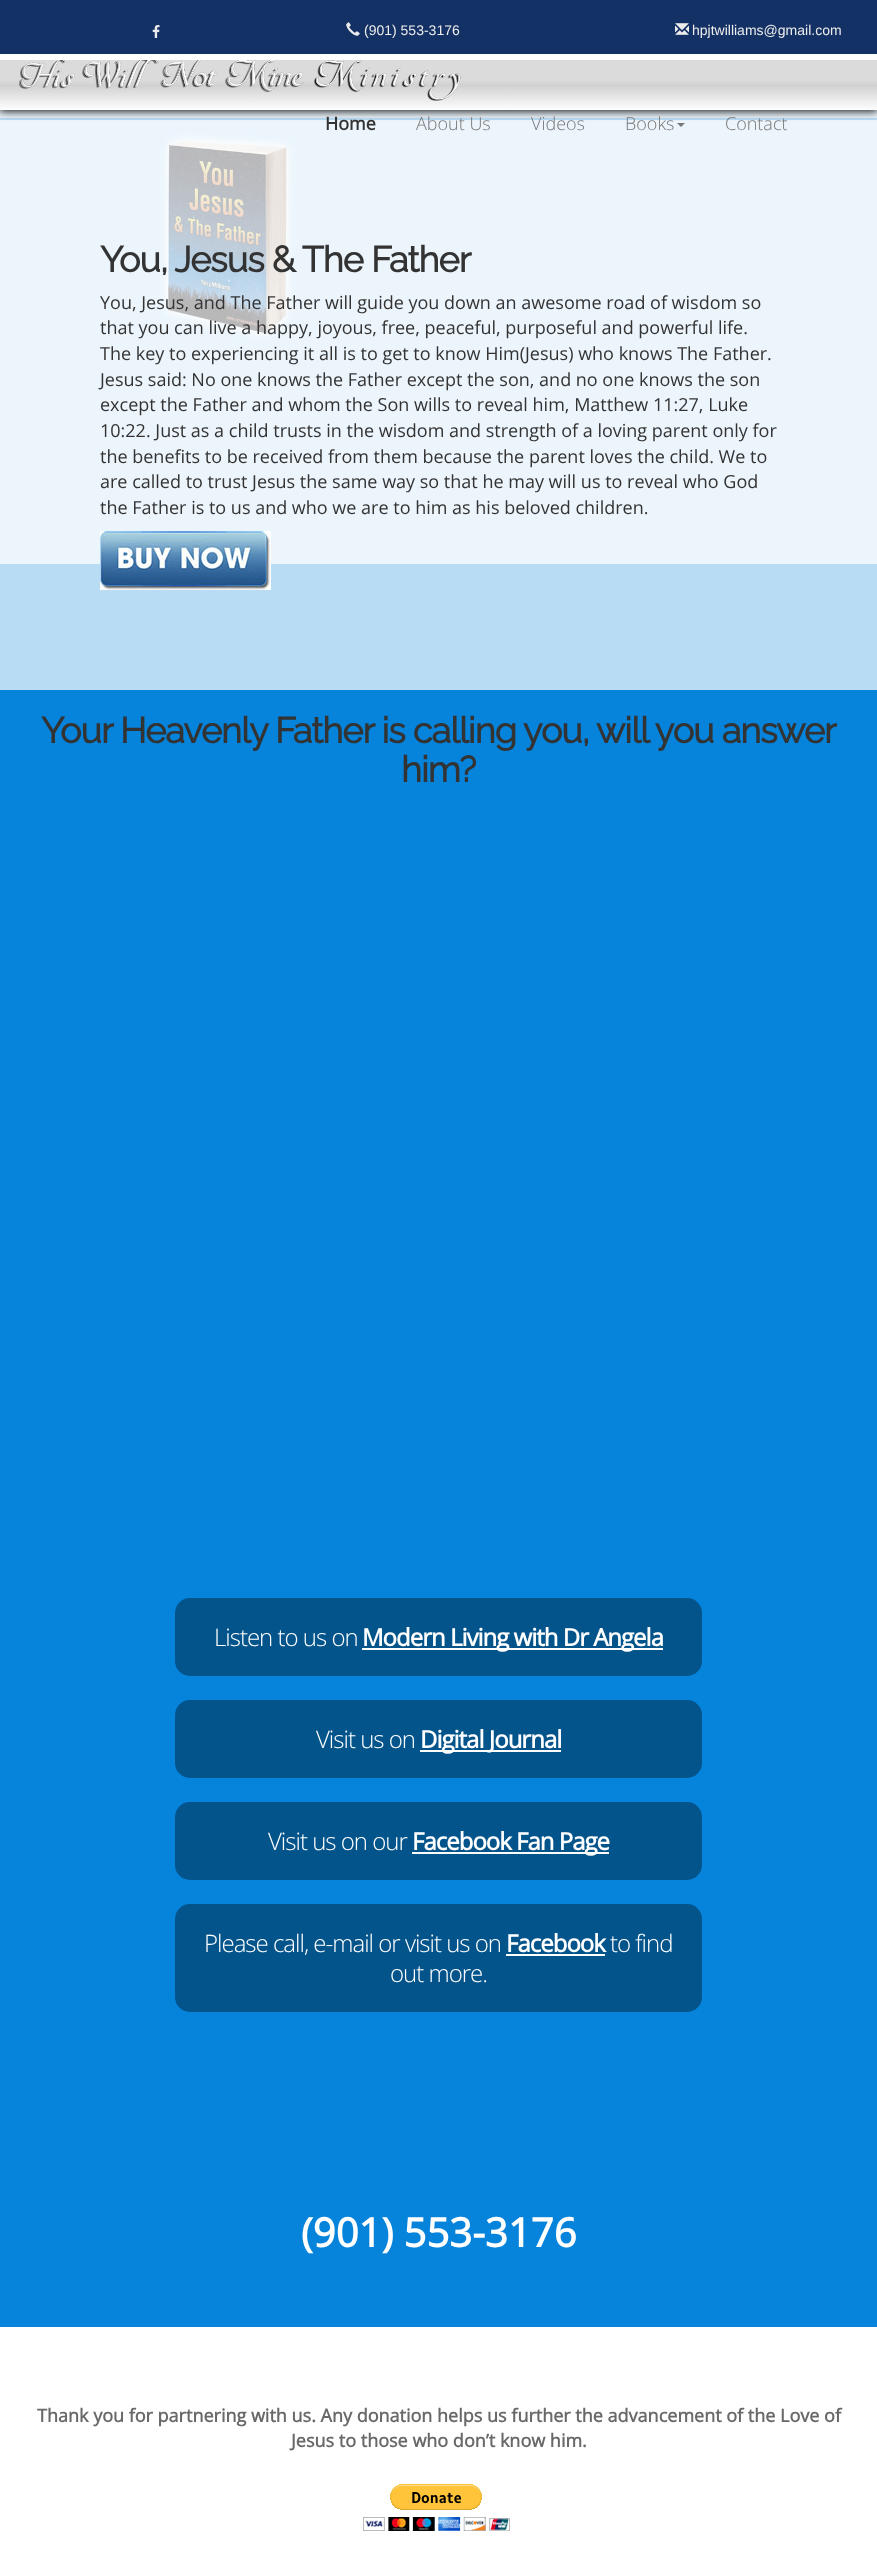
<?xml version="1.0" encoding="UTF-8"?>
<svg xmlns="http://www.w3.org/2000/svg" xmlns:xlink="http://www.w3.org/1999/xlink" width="877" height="2559">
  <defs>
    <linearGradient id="g1" gradientUnits="userSpaceOnUse" x1="439" y1="60" x2="439" y2="110"><stop offset="0" stop-color="#e2e2e2" /><stop offset="0" stop-color="#dbdbdb" /><stop offset="0.4" stop-color="#dbdbdb" /><stop offset="0.51" stop-color="#d1d1d1" /><stop offset="1" stop-color="#fefefe" /></linearGradient>
  </defs>
  <rect width="100%" height="100%" fill="#ffffff" />
  <rect y="118" width="877" height="1" fill="#baddf5" />
  <rect y="110" width="877" height="8" fill="#ecf5fc" />
  <image x="0" y="119" width="877" height="445" xlink:href="image5.png" />
  <rect x="-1" y="59" width="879" height="52" fill="#000000" filter="blur(5px)" />
  <rect width="877" height="54" fill="#143165" />
  <rect y="54" width="877" height="6" fill="#ffffff" />
  <image x="152" y="25" width="8" height="13" xlink:href="image1.png" />
  <image x="346" y="22" width="14" height="14" xlink:href="image2.png" />
  <image x="675" y="23" width="14" height="12" xlink:href="image3.png" />
  <rect y="60" width="877" height="50" fill="url(#g1)" />
  <image x="19" y="60" width="442" height="41" xlink:href="image4.png" />
  <path d="M 677 123 h 8 l -4 4 z" fill="#777777" />
  <rect y="690" width="877" height="1637" fill="#0683db" />
  <rect y="564" width="877" height="126" fill="#b9dcf5" />
  <image x="100" y="531" width="171" height="59" xlink:href="image6.png" />
  <rect x="175" y="1598" width="527" height="78" rx="15" fill="#04548c" />
  <rect x="362" y="1648" width="301" height="2" fill="#ffffff" />
  <rect x="175" y="1700" width="527" height="78" rx="15" fill="#04548c" />
  <rect x="420" y="1750" width="141" height="2" fill="#ffffff" />
  <rect x="175" y="1802" width="527" height="78" rx="15" fill="#04548c" />
  <rect x="412" y="1852" width="197" height="2" fill="#ffffff" />
  <rect x="175" y="1904" width="527" height="108" rx="15" fill="#04548c" />
  <rect x="506" y="1954" width="99" height="2" fill="#ffffff" />
  <image x="363" y="2484" width="147" height="47" xlink:href="image7.png" />
  <text x="364" y="35" style="font-family: Liberation Sans; font-size: 14px; fill: #ececec">(901) 553-3176</text>
  <text x="692" y="35" style="font-family: Liberation Sans; font-size: 14px; fill: #ececec">hpjtwilliams@gmail.com</text>
  <text x="325" y="130" style="font-family: Open Sans; font-size: 18px; font-weight: bold; fill: #333333">Home</text>
  <text x="416" y="130" style="font-family: Open Sans; font-size: 18px; font-weight: 300; fill: #777777">About Us</text>
  <text x="531" y="130" style="font-family: Open Sans; font-size: 18px; font-weight: 300; fill: #777777">Videos</text>
  <text x="625" y="130" style="font-family: Open Sans; font-size: 18px; font-weight: 300; fill: #777777">Books</text>
  <text x="725" y="130" style="font-family: Open Sans; font-size: 18px; font-weight: 300; fill: #777777">Contact</text>
  <text x="100" y="272" style="font-family: Raleway; font-size: 36px; font-weight: bold; letter-spacing: -1px; fill: #333333">You, Jesus &amp; The Father</text>
  <text x="100" y="309" style="font-family: Open Sans; font-size: 18px; fill: #333333">You, Jesus, and The Father will guide you down an awesome road of wisdom so</text>
  <text x="100" y="334" style="font-family: Open Sans; font-size: 18px; fill: #333333">that you can live a happy, joyous, free, peaceful, purposeful and powerful life.</text>
  <text x="100" y="360" style="font-family: Open Sans; font-size: 18px; fill: #333333">The key to experiencing it all is to get to know Him(Jesus) who knows The Father.</text>
  <text x="100" y="386" style="font-family: Open Sans; font-size: 18px; fill: #333333">Jesus said: No one knows the Father except the son, and no one knows the son</text>
  <text x="100" y="411" style="font-family: Open Sans; font-size: 18px; fill: #333333">except the Father and whom the Son wills to reveal him, Matthew 11:27, Luke</text>
  <text x="100" y="437" style="font-family: Open Sans; font-size: 18px; fill: #333333">10:22. Just as a child trusts in the wisdom and strength of a loving parent only for</text>
  <text x="100" y="463" style="font-family: Open Sans; font-size: 18px; fill: #333333">the benefits to be received from them because the parent loves the child. We to</text>
  <text x="100" y="488" style="font-family: Open Sans; font-size: 18px; fill: #333333">are called to trust Jesus the same way so that he may will us to reveal who God</text>
  <text x="100" y="514" style="font-family: Open Sans; font-size: 18px; fill: #333333">the Father is to us and who we are to him as his beloved children.</text>
  <text x="41" y="743" style="font-family: Raleway; font-size: 36px; font-weight: bold; letter-spacing: -1px; fill: #333333">Your Heavenly Father is calling you, will you answer</text>
  <text x="401" y="782" style="font-family: Raleway; font-size: 36px; font-weight: bold; letter-spacing: -1px; fill: #333333">him?</text>
  <text x="214" y="1646" style="font-family: Open Sans; font-size: 24px; font-weight: 300; letter-spacing: -1px; fill: #ffffff">Listen to us on</text>
  <text x="362" y="1646" style="font-family: Open Sans; font-size: 24px; font-weight: bold; letter-spacing: -1px; fill: #ffffff">Modern Living with Dr Angela</text>
  <text x="316" y="1748" style="font-family: Open Sans; font-size: 24px; font-weight: 300; letter-spacing: -1px; fill: #ffffff">Visit us on</text>
  <text x="420" y="1748" style="font-family: Open Sans; font-size: 24px; font-weight: bold; letter-spacing: -1px; fill: #ffffff">Digital Journal</text>
  <text x="268" y="1850" style="font-family: Open Sans; font-size: 24px; font-weight: 300; letter-spacing: -1px; fill: #ffffff">Visit us on our</text>
  <text x="412" y="1850" style="font-family: Open Sans; font-size: 24px; font-weight: bold; letter-spacing: -1px; fill: #ffffff">Facebook Fan Page</text>
  <text x="204" y="1952" style="font-family: Open Sans; font-size: 24px; font-weight: 300; letter-spacing: -1px; fill: #ffffff">Please call, e-mail or visit us on</text>
  <text x="506" y="1952" style="font-family: Open Sans; font-size: 24px; font-weight: bold; letter-spacing: -1px; fill: #ffffff">Facebook</text>
  <text x="610" y="1952" style="font-family: Open Sans; font-size: 24px; font-weight: 300; letter-spacing: -1px; fill: #ffffff">to find</text>
  <text x="390" y="1982" style="font-family: Open Sans; font-size: 24px; font-weight: 300; letter-spacing: -1px; fill: #ffffff">out more.</text>
  <text x="301" y="2247" style="font-family: Open Sans; font-size: 40px; font-weight: bold; fill: #ffffff">(901) 553-3176</text>
  <text x="37" y="2422" style="font-family: Open Sans; font-size: 18px; font-weight: bold; fill: #696969">Thank you for partnering with us. Any donation helps us further the advancement of the Love of</text>
  <text x="291" y="2447" style="font-family: Open Sans; font-size: 18px; font-weight: bold; fill: #696969">Jesus to those who don’t know him.</text>
</svg>
